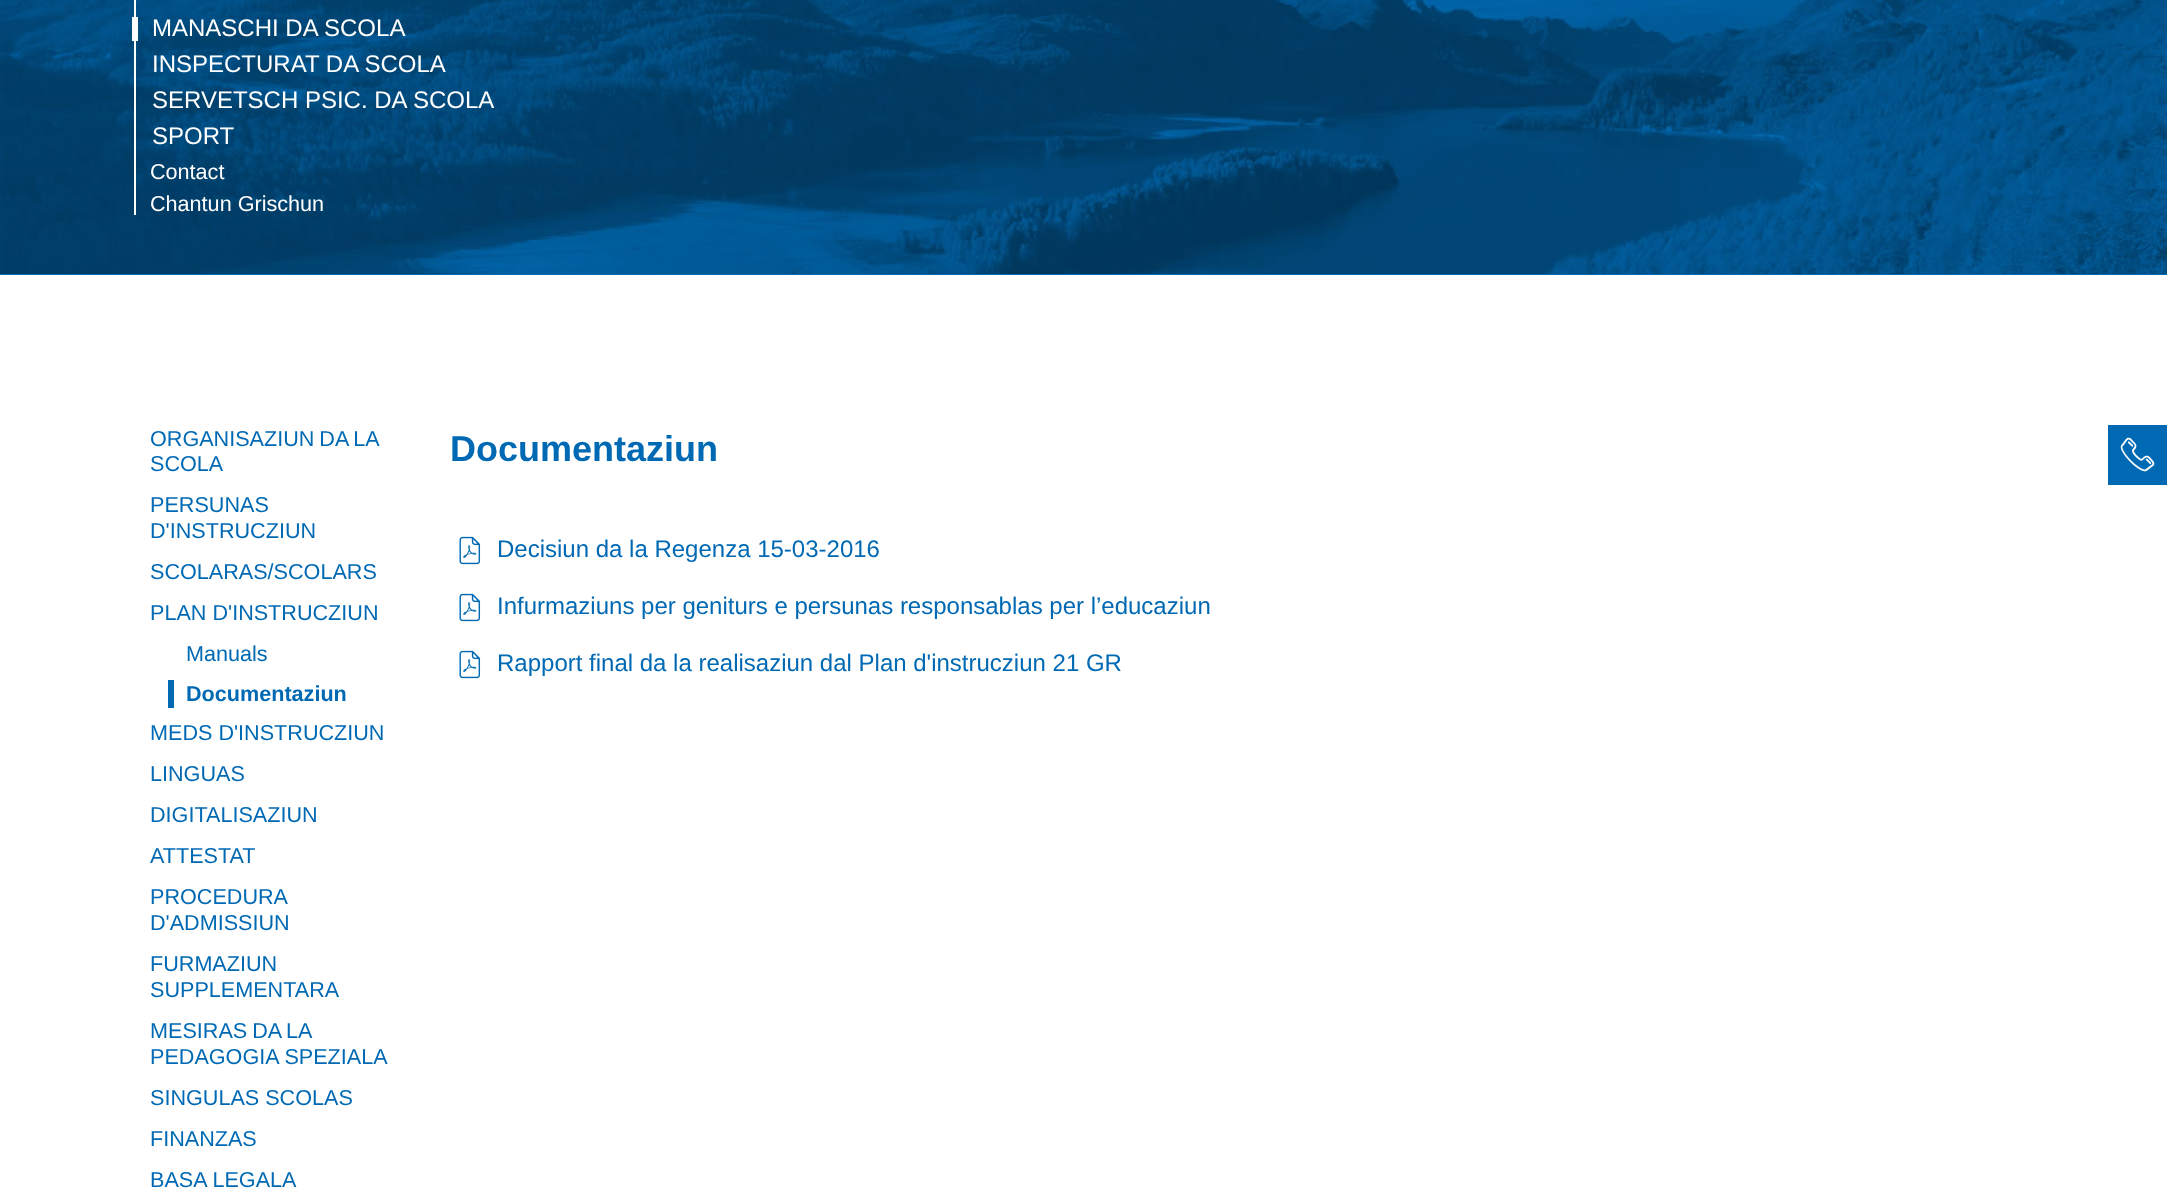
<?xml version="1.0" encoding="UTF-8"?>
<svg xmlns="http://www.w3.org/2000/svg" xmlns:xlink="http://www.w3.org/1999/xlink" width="2167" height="1202">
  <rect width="100%" height="100%" fill="#ffffff" />
  <rect y="274" width="2167" height="1" fill="#0069b4" />
  <image x="0" y="0" width="2167" height="274" xlink:href="image1.png" />
  <rect x="134" width="2" height="215" fill="#ffffff" />
  <rect x="132" y="17" width="6" height="24" fill="#ffffff" />
  <rect x="168" y="680" width="6" height="28" fill="#0069b4" />
  <image x="459" y="536" width="22" height="29" xlink:href="image2.png" />
  <image x="459" y="593" width="22" height="29" xlink:href="image2.png" />
  <image x="459" y="650" width="22" height="29" xlink:href="image2.png" />
  <rect x="2108" y="425" width="59" height="60" fill="#0069b4" />
  <image x="2120" y="437" width="35" height="35" xlink:href="image3.png" />
  <text x="152" y="36" style="font-family: Liberation Sans; font-size: 24px; fill: #ffffff">MANASCHI DA SCOLA</text>
  <text x="152" y="72" style="font-family: Liberation Sans; font-size: 24px; fill: #ffffff">INSPECTURAT DA SCOLA</text>
  <text x="152" y="108" style="font-family: Liberation Sans; font-size: 24px; fill: #ffffff">SERVETSCH PSIC. DA SCOLA</text>
  <text x="152" y="144" style="font-family: Liberation Sans; font-size: 24px; fill: #ffffff">SPORT</text>
  <text x="150" y="179" style="font-family: Liberation Sans; font-size: 21.6px; fill: #ffffff">Contact</text>
  <text x="150" y="211" style="font-family: Liberation Sans; font-size: 21.6px; fill: #ffffff">Chantun Grischun</text>
  <text x="150" y="446" word-spacing="-1" style="font-family: Liberation Sans; font-size: 21.6px; fill: #0069b4">ORGANISAZIUN DA LA</text>
  <text x="150" y="471" style="font-family: Liberation Sans; font-size: 21.6px; fill: #0069b4">SCOLA</text>
  <text x="150" y="512" style="font-family: Liberation Sans; font-size: 21.6px; fill: #0069b4">PERSUNAS</text>
  <text x="150" y="538" style="font-family: Liberation Sans; font-size: 21.6px; fill: #0069b4">D'INSTRUCZIUN</text>
  <text x="150" y="579" style="font-family: Liberation Sans; font-size: 21.6px; fill: #0069b4">SCOLARAS/SCOLARS</text>
  <text x="150" y="620" style="font-family: Liberation Sans; font-size: 21.6px; fill: #0069b4">PLAN D'INSTRUCZIUN</text>
  <text x="186" y="661" style="font-family: Liberation Sans; font-size: 21.6px; fill: #0069b4">Manuals</text>
  <text x="186" y="701" style="font-family: Liberation Sans; font-size: 21.6px; font-weight: bold; fill: #0069b4">Documentaziun</text>
  <text x="150" y="740" style="font-family: Liberation Sans; font-size: 21.6px; fill: #0069b4">MEDS D'INSTRUCZIUN</text>
  <text x="150" y="781" style="font-family: Liberation Sans; font-size: 21.6px; fill: #0069b4">LINGUAS</text>
  <text x="150" y="822" style="font-family: Liberation Sans; font-size: 21.6px; fill: #0069b4">DIGITALISAZIUN</text>
  <text x="150" y="863" style="font-family: Liberation Sans; font-size: 21.6px; fill: #0069b4">ATTESTAT</text>
  <text x="150" y="904" style="font-family: Liberation Sans; font-size: 21.6px; fill: #0069b4">PROCEDURA</text>
  <text x="150" y="930" style="font-family: Liberation Sans; font-size: 21.6px; fill: #0069b4">D'ADMISSIUN</text>
  <text x="150" y="971" style="font-family: Liberation Sans; font-size: 21.6px; fill: #0069b4">FURMAZIUN</text>
  <text x="150" y="997" style="font-family: Liberation Sans; font-size: 21.6px; fill: #0069b4">SUPPLEMENTARA</text>
  <text x="150" y="1038" word-spacing="-1" style="font-family: Liberation Sans; font-size: 21.6px; fill: #0069b4">MESIRAS DA LA</text>
  <text x="150" y="1064" style="font-family: Liberation Sans; font-size: 21.6px; fill: #0069b4">PEDAGOGIA SPEZIALA</text>
  <text x="150" y="1105" style="font-family: Liberation Sans; font-size: 21.6px; fill: #0069b4">SINGULAS SCOLAS</text>
  <text x="150" y="1146" style="font-family: Liberation Sans; font-size: 21.6px; fill: #0069b4">FINANZAS</text>
  <text x="150" y="1187" style="font-family: Liberation Sans; font-size: 21.6px; fill: #0069b4">BASA LEGALA</text>
  <text x="450" y="461" style="font-family: Liberation Sans; font-size: 36px; font-weight: bold; fill: #0069b4">Documentaziun</text>
  <text x="497" y="557" style="font-family: Liberation Sans; font-size: 24px; fill: #0069b4">Decisiun da la Regenza 15-03-2016</text>
  <text x="497" y="614" style="font-family: Liberation Sans; font-size: 24px; fill: #0069b4">Infurmaziuns per geniturs e persunas responsablas per l’educaziun</text>
  <text x="497" y="671" style="font-family: Liberation Sans; font-size: 24px; fill: #0069b4">Rapport final da la realisaziun dal Plan d'instrucziun 21 GR</text>
</svg>
